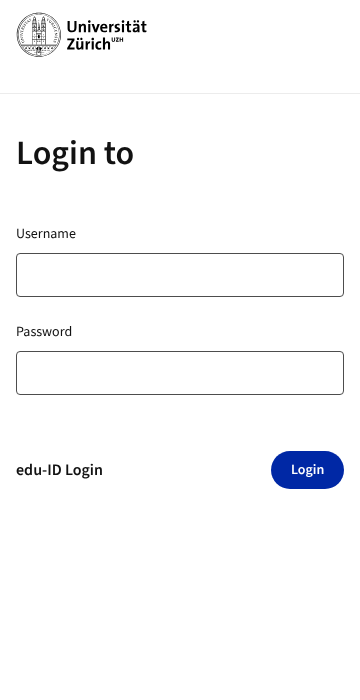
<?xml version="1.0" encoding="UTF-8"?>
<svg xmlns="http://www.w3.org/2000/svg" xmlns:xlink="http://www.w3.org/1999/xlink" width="360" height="700">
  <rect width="100%" height="100%" fill="#ffffff" />
  <rect y="93" width="360" height="1" fill="#ececec" />
  <image x="16" y="12" width="131" height="45" xlink:href="image1.png" />
  <rect x="16.5" y="253.5" width="327" height="43" rx="3.5" fill="none" stroke="#4d4d4d" />
  <rect x="16.5" y="351.5" width="327" height="43" rx="3.5" fill="none" stroke="#4d4d4d" />
  <rect x="271" y="451" width="73" height="38" rx="19" fill="#0028a5" />
  <text x="16" y="164" style="font-family: 'Source Sans 3'; font-size: 34px; font-weight: 600; fill: #121212">Login to</text>
  <text x="16" y="238" style="font-family: 'Source Sans 3'; font-size: 14px; fill: #121212">Username</text>
  <text x="16" y="336" style="font-family: 'Source Sans 3'; font-size: 14px; fill: #121212">Password</text>
  <text x="16" y="475" style="font-family: 'Source Sans 3'; font-size: 16px; font-weight: 600; fill: #121212">edu-ID Login</text>
  <text x="291" y="474" style="font-family: 'Source Sans 3'; font-size: 14px; font-weight: 600; fill: #ffffff">Login</text>
</svg>
